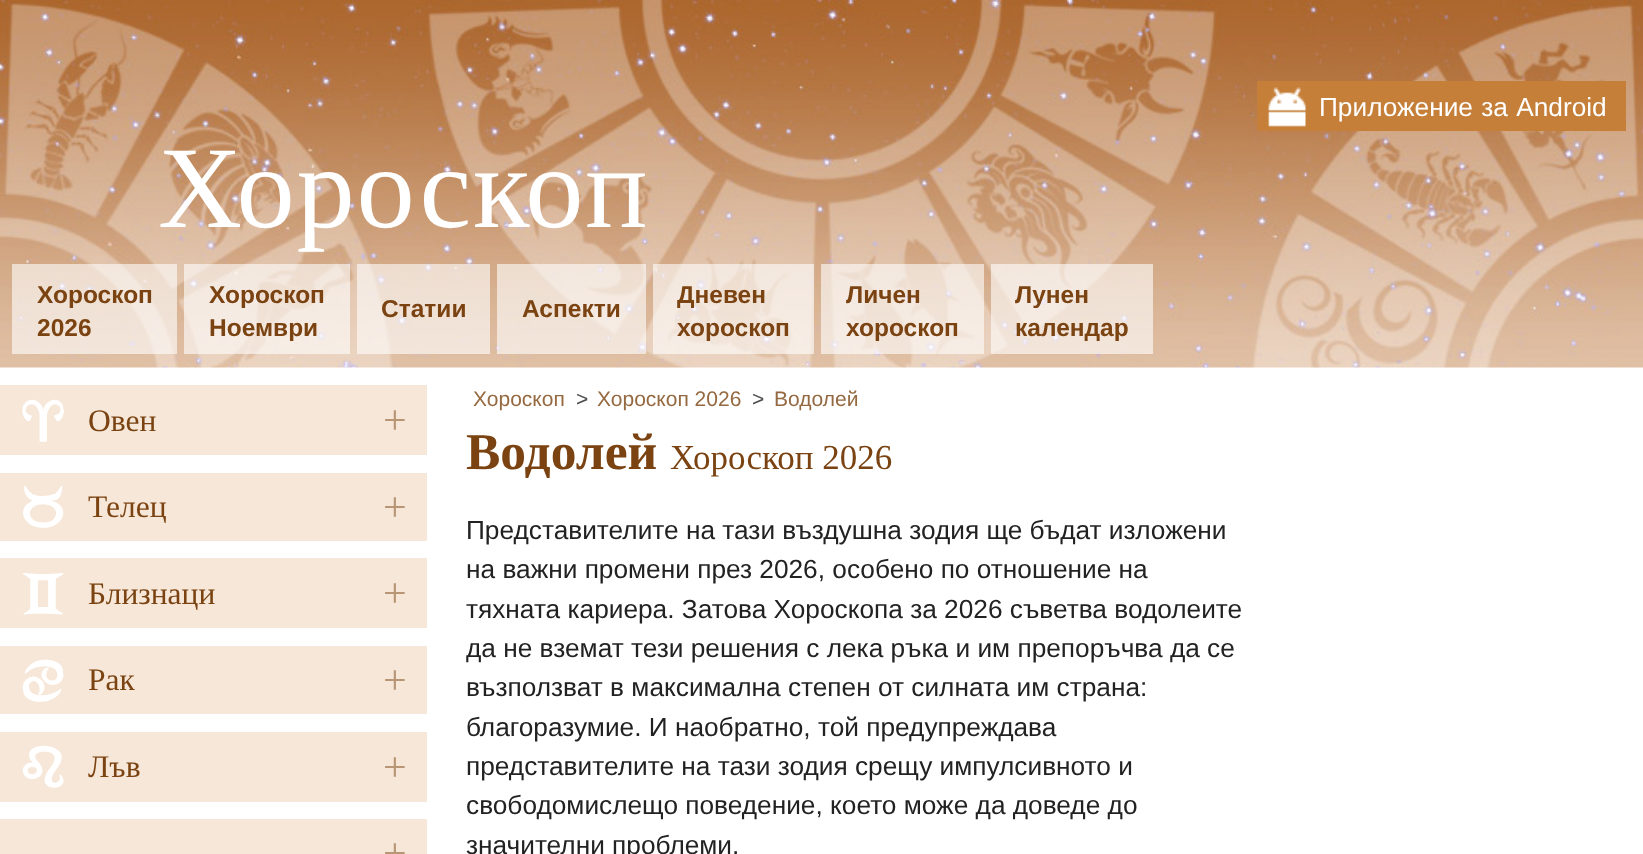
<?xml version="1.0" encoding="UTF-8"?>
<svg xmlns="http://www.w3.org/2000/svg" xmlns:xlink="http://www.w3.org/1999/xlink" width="1643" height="854">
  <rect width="100%" height="100%" fill="#ffffff" />
  <image x="0" y="0" width="1643" height="368" xlink:href="image1.png" />
  <rect x="1257" y="81" width="369" height="50" fill="#c57f39" />
  <image x="1268" y="87" width="38" height="40" xlink:href="image2.png" />
  <rect x="12" y="264" width="165" height="90" fill="#ffffff" fill-opacity="0.6" />
  <rect x="184" y="264" width="166" height="90" fill="#ffffff" fill-opacity="0.6" />
  <rect x="357" y="264" width="133" height="90" fill="#ffffff" fill-opacity="0.6" />
  <rect x="497" y="264" width="149" height="90" fill="#ffffff" fill-opacity="0.6" />
  <rect x="653" y="264" width="161" height="90" fill="#ffffff" fill-opacity="0.6" />
  <rect x="821" y="264" width="163" height="90" fill="#ffffff" fill-opacity="0.6" />
  <rect x="991" y="264" width="162" height="90" fill="#ffffff" fill-opacity="0.6" />
  <rect y="385" width="427" height="70" fill="#f6e7d8" />
  <rect y="473" width="427" height="68" fill="#f6e7d8" />
  <rect y="558" width="427" height="70" fill="#f6e7d8" />
  <rect y="646" width="427" height="68" fill="#f6e7d8" />
  <rect y="732" width="427" height="70" fill="#f6e7d8" />
  <rect y="819" width="427" height="35" fill="#f6e7d8" />
  <text x="1319" y="116" word-spacing="1" style="font-family: Liberation Sans; font-size: 26.25px; fill: #ffffff">Приложение за Android</text>
  <text x="158" y="227" style="font-family: Liberation Serif; font-size: 116.5px; letter-spacing: 1.75px; fill: #ffffff">Хороскоп</text>
  <text x="37" y="303" style="font-family: Liberation Sans; font-size: 24.5px; font-weight: bold; fill: #7a4311">Хороскоп</text>
  <text x="37" y="336" style="font-family: Liberation Sans; font-size: 24.5px; font-weight: bold; fill: #7a4311">2026</text>
  <text x="209" y="303" style="font-family: Liberation Sans; font-size: 24.5px; font-weight: bold; fill: #7a4311">Хороскоп</text>
  <text x="209" y="336" style="font-family: Liberation Sans; font-size: 24.5px; font-weight: bold; fill: #7a4311">Ноември</text>
  <text x="381" y="317" style="font-family: Liberation Sans; font-size: 24.5px; font-weight: bold; fill: #7a4311">Статии</text>
  <text x="522" y="317" style="font-family: Liberation Sans; font-size: 24.5px; font-weight: bold; fill: #7a4311">Аспекти</text>
  <text x="677" y="303" style="font-family: Liberation Sans; font-size: 24.5px; font-weight: bold; fill: #7a4311">Дневен</text>
  <text x="677" y="336" style="font-family: Liberation Sans; font-size: 24.5px; font-weight: bold; fill: #7a4311">хороскоп</text>
  <text x="846" y="303" style="font-family: Liberation Sans; font-size: 24.5px; font-weight: bold; fill: #7a4311">Личен</text>
  <text x="846" y="336" style="font-family: Liberation Sans; font-size: 24.5px; font-weight: bold; fill: #7a4311">хороскоп</text>
  <text x="1015" y="303" style="font-family: Liberation Sans; font-size: 24.5px; font-weight: bold; fill: #7a4311">Лунен</text>
  <text x="1015" y="336" style="font-family: Liberation Sans; font-size: 24.5px; font-weight: bold; fill: #7a4311">календар</text>
  <text x="21" y="443" style="font-family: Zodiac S; font-size: 42px; font-weight: bold; fill: #ffffff">a</text>
  <text x="88" y="431" style="font-family: Liberation Serif; font-size: 31.5px; fill: #7a4311">Овен</text>
  <text x="383" y="434" style="font-family: Liberation Serif; font-size: 42px; fill: #b89575">+</text>
  <text x="21" y="529" style="font-family: Zodiac S; font-size: 42px; font-weight: bold; fill: #ffffff">b</text>
  <text x="88" y="517" style="font-family: Liberation Serif; font-size: 31.5px; fill: #7a4311">Телец</text>
  <text x="383" y="521" style="font-family: Liberation Serif; font-size: 42px; fill: #b89575">+</text>
  <text x="21" y="616" style="font-family: Zodiac S; font-size: 42px; font-weight: bold; fill: #ffffff">c</text>
  <text x="88" y="604" style="font-family: Liberation Serif; font-size: 31.5px; fill: #7a4311">Близнаци</text>
  <text x="383" y="607" style="font-family: Liberation Serif; font-size: 42px; fill: #b89575">+</text>
  <text x="21" y="703" style="font-family: Zodiac S; font-size: 42px; font-weight: bold; fill: #ffffff">d</text>
  <text x="88" y="690" style="font-family: Liberation Serif; font-size: 31.5px; fill: #7a4311">Рак</text>
  <text x="383" y="694" style="font-family: Liberation Serif; font-size: 42px; fill: #b89575">+</text>
  <text x="21" y="789" style="font-family: Zodiac S; font-size: 42px; font-weight: bold; fill: #ffffff">e</text>
  <text x="88" y="777" style="font-family: Liberation Serif; font-size: 31.5px; fill: #7a4311">Лъв</text>
  <text x="383" y="781" style="font-family: Liberation Serif; font-size: 42px; fill: #b89575">+</text>
  <text x="383" y="867" style="font-family: Liberation Serif; font-size: 42px; fill: #b89575">+</text>
  <text x="473" y="406" style="font-family: Liberation Sans; font-size: 21px; fill: #956941">Хороскоп</text>
  <text x="576" y="406" style="font-family: Liberation Sans; font-size: 21px; fill: #4e4e4e">&gt;</text>
  <text x="597" y="406" style="font-family: Liberation Sans; font-size: 21px; fill: #956941">Хороскоп 2026</text>
  <text x="752" y="406" style="font-family: Liberation Sans; font-size: 21px; fill: #4e4e4e">&gt;</text>
  <text x="774" y="406" style="font-family: Liberation Sans; font-size: 21px; fill: #956941">Водолей</text>
  <text x="466" y="469" style="font-family: Liberation Serif; font-size: 51.5px; font-weight: bold; fill: #7a4311">Водолей</text>
  <text x="670" y="469" style="font-family: Liberation Serif; font-size: 35px; fill: #7a4311">Хороскоп 2026</text>
  <text x="466" y="539" style="font-family: Liberation Sans; font-size: 26.25px; fill: #222222">Представителите на тази въздушна зодия ще бъдат изложени</text>
  <text x="466" y="578" style="font-family: Liberation Sans; font-size: 26.25px; fill: #222222">на важни промени през 2026, особено по отношение на</text>
  <text x="466" y="618" style="font-family: Liberation Sans; font-size: 26.25px; fill: #222222">тяхната кариера. Затова Хороскопа за 2026 съветва водолеите</text>
  <text x="466" y="657" style="font-family: Liberation Sans; font-size: 26.25px; fill: #222222">да не вземат тези решения с лека ръка и им препоръчва да се</text>
  <text x="466" y="696" style="font-family: Liberation Sans; font-size: 26.25px; fill: #222222">възползват в максимална степен от силната им страна:</text>
  <text x="466" y="736" style="font-family: Liberation Sans; font-size: 26.25px; fill: #222222">благоразумие. И наобратно, той предупреждава</text>
  <text x="466" y="775" style="font-family: Liberation Sans; font-size: 26.25px; fill: #222222">представителите на тази зодия срещу импулсивното и</text>
  <text x="466" y="814" style="font-family: Liberation Sans; font-size: 26.25px; fill: #222222">свободомислещо поведение, което може да доведе до</text>
  <text x="466" y="854" style="font-family: Liberation Sans; font-size: 26.25px; fill: #222222">значителни проблеми.</text>
</svg>
